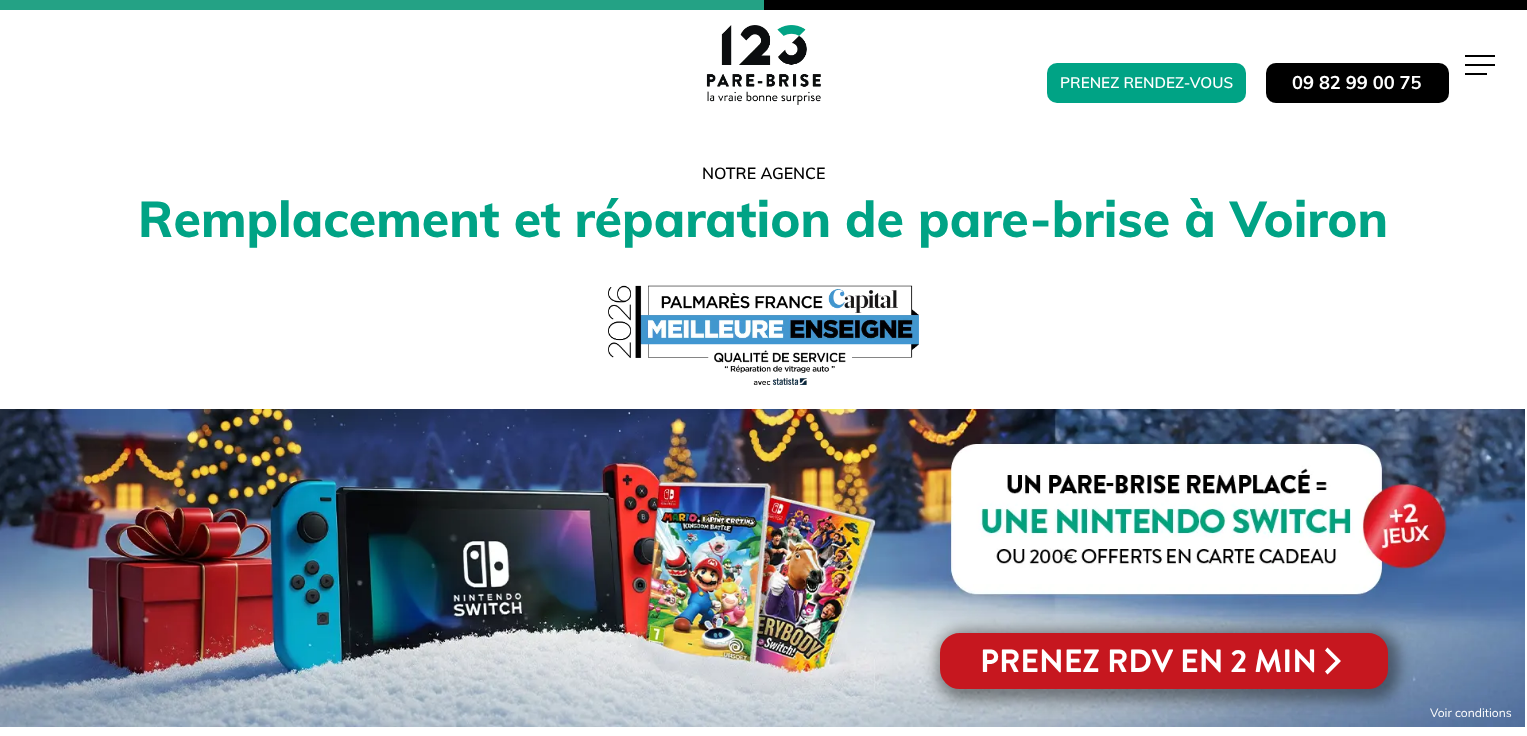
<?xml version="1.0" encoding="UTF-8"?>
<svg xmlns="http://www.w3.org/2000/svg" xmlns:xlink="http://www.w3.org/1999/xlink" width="1527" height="736">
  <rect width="100%" height="100%" fill="#ffffff" />
  <rect x="764" width="763" height="10" fill="#000000" />
  <rect width="764" height="10" fill="#24a285" />
  <image x="706" y="25" width="115" height="80" xlink:href="image1.png" />
  <rect x="1465" y="55" width="30" height="2" fill="#000000" />
  <rect x="1465" y="73" width="22" height="2" fill="#000000" />
  <rect x="1465" y="64" width="30" height="2" fill="#000000" />
  <rect x="1047" y="63" width="199" height="40" rx="10" fill="#00a385" />
  <rect x="1266" y="63" width="183" height="40" rx="10" fill="#000000" />
  <image x="608" y="285" width="311" height="100" xlink:href="image2.png" />
  <image x="0" y="409" width="1525" height="318" xlink:href="image3.png" />
  <rect x="937" y="630" width="462" height="70" rx="27" fill="#000000" fill-opacity="0.4" filter="blur(7px)" />
  <rect x="941" y="634" width="446" height="54" rx="19" fill="#c6171f" stroke="#c6171f" stroke-width="2" />
  <path d="M 1325 650.5 l 2.5 -3 l 13.5 13.5 l -13.5 13.5 l -2.5 -3 l 10.5 -10.5 z" fill="#ffffff" />
  <text x="1060" y="88" style="font-family: Muli; font-size: 15.25px; font-weight: 600; fill: #ffffff">PRENEZ RENDEZ-VOUS</text>
  <text x="1292" y="89" style="font-family: Muli; font-size: 18.25px; font-weight: bold; fill: #ffffff">09 82 99 00 75</text>
  <text x="702" y="179" style="font-family: Muli; font-size: 16px; font-weight: 600; fill: #000000">NOTRE AGENCE</text>
  <text x="138" y="237" style="font-family: Muli; font-size: 50px; font-weight: 800; fill: #00a385">Remplacement et réparation de pare-brise à Voiron</text>
  <text x="980" y="672" style="font-family: Brandon Grotesque; font-size: 32px; font-weight: bold; fill: #ffffff">PRENEZ RDV EN 2 MIN</text>
  <text x="1430" y="717" style="font-family: Muli; font-size: 12px; fill: #ffffff">Voir conditions</text>
</svg>
